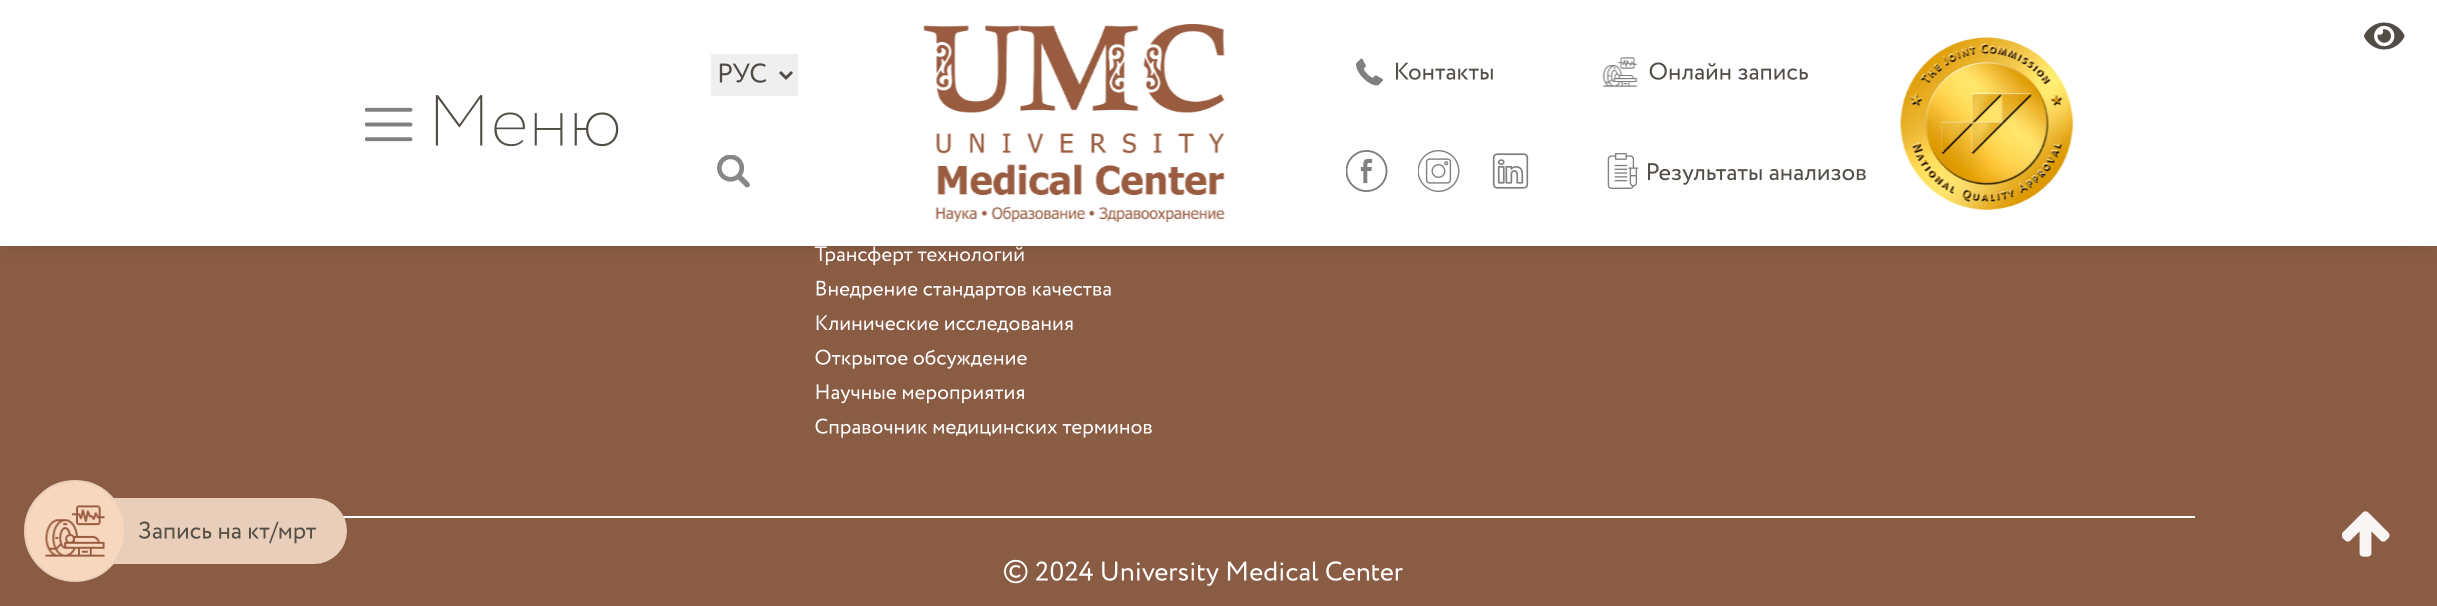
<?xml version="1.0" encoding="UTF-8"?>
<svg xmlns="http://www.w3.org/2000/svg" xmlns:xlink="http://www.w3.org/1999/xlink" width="2437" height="606">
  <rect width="100%" height="100%" fill="#8a5c43" />
  <image x="814" y="246" width="210" height="20" xlink:href="image19.png" />
  <rect y="-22" width="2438" height="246" fill="#000000" filter="blur(15px)" />
  <rect width="2437" height="246" fill="#ffffff" />
  <image x="365" y="107" width="48" height="35" xlink:href="image1.png" />
  <image x="435" y="95" width="184" height="52" xlink:href="image2.png" />
  <rect x="711" y="54" width="87" height="42" fill="#efefef" />
  <path d="M 780 72 l 6 6 l 6 -6" fill="none" stroke="#514d46" stroke-width="3" />
  <image x="719" y="63" width="48" height="20" xlink:href="image3.png" />
  <image x="717" y="155" width="33" height="33" xlink:href="image4.png" />
  <image x="923" y="24" width="302" height="198" xlink:href="image5.png" />
  <image x="1356" y="58" width="27" height="28" xlink:href="image6.png" />
  <image x="1396" y="62" width="97" height="18" xlink:href="image7.png" />
  <image x="1602" y="57" width="36" height="30" xlink:href="image8.png" />
  <image x="1649" y="62" width="159" height="18" xlink:href="image9.png" />
  <image x="1346" y="150" width="42" height="42" xlink:href="image10.png" />
  <image x="1418" y="150" width="42" height="42" xlink:href="image11.png" />
  <image x="1492" y="153" width="37" height="36" xlink:href="image12.png" />
  <image x="1607" y="153" width="32" height="36" xlink:href="image13.png" />
  <image x="1648" y="163" width="218" height="22" xlink:href="image14.png" />
  <image x="1900" y="37" width="174" height="173" xlink:href="image15.png" />
  <image x="2364" y="22" width="41" height="28" xlink:href="image16.png" />
  <rect x="343" y="516" width="1852" height="2" fill="#ffffff" />
  <rect x="42" y="498" width="305" height="66" rx="33" fill="#e9cfba" />
  <circle cx="75" cy="531" r="50" fill="#f8d7bf" stroke="#e9cfba" stroke-width="2" />
  <image x="45" y="505" width="60" height="52" xlink:href="image17.png" />
  <image x="139" y="521" width="177" height="23" xlink:href="image18.png" />
  <image x="816" y="280" width="295" height="20" xlink:href="image20.png" />
  <image x="816" y="315" width="257" height="18" xlink:href="image21.png" />
  <image x="815" y="349" width="212" height="20" xlink:href="image22.png" />
  <image x="816" y="384" width="208" height="20" xlink:href="image23.png" />
  <image x="815" y="418" width="337" height="20" xlink:href="image24.png" />
  <image x="1004" y="559" width="24" height="25" xlink:href="image25.png" />
  <image x="1036" y="561" width="367" height="25" xlink:href="image26.png" />
  <image x="2342" y="511" width="48" height="46" xlink:href="image27.png" />
</svg>
